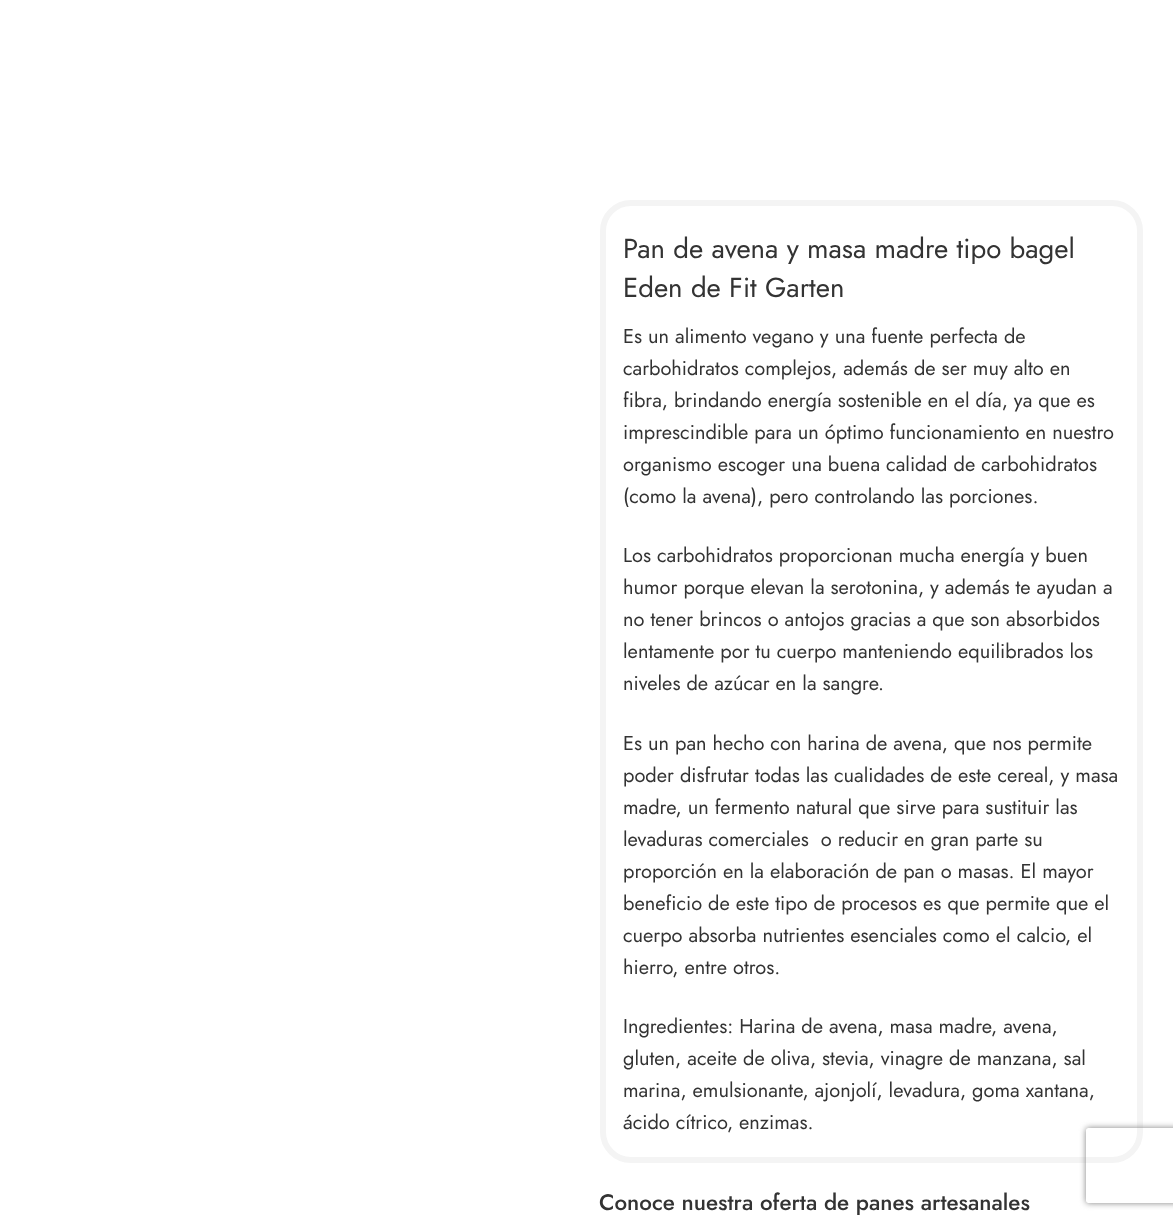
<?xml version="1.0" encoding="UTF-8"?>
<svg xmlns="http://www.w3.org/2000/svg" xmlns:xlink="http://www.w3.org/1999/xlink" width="1173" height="1219">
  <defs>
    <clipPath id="clip1"><path d="M 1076 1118 h 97 v 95 h -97 z m 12.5 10 h 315 c 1.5 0 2.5 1 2.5 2.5 v 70 c 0 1.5 -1 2.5 -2.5 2.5 h -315 c -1.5 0 -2.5 -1 -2.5 -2.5 v -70 c 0 -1.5 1 -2.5 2.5 -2.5 z" clip-rule="evenodd" /></clipPath>
  </defs>
  <rect width="100%" height="100%" fill="#ffffff" />
  <rect x="603" y="203" width="537" height="957" rx="28" fill="none" stroke="#f4f4f4" stroke-width="6" />
  <g clip-path="url(#clip1)">
    <rect x="1086" y="1128" width="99" height="75" rx="2.5" fill="#808080" filter="blur(3px)" />
  </g>
  <text x="623" y="258" style="font-family: Jost; font-size: 27.6px; fill: #333333">Pan de avena y masa madre tipo bagel</text>
  <text x="623" y="297" style="font-family: Jost; font-size: 27.6px; fill: #333333">Eden de Fit Garten</text>
  <text x="623" y="343" style="font-family: Jost; font-size: 20px; fill: #333333">Es un alimento vegano y una fuente perfecta de</text>
  <text x="623" y="375" style="font-family: Jost; font-size: 20px; fill: #333333">carbohidratos complejos, además de ser muy alto en</text>
  <text x="623" y="407" style="font-family: Jost; font-size: 20px; fill: #333333">fibra, brindando energía sostenible en el día, ya que es</text>
  <text x="623" y="439" style="font-family: Jost; font-size: 20px; fill: #333333">imprescindible para un óptimo funcionamiento en nuestro</text>
  <text x="623" y="471" style="font-family: Jost; font-size: 20px; fill: #333333">organismo escoger una buena calidad de carbohidratos</text>
  <text x="623" y="503" style="font-family: Jost; font-size: 20px; fill: #333333">(como la avena), pero controlando las porciones.</text>
  <text x="623" y="562" style="font-family: Jost; font-size: 20px; fill: #333333">Los carbohidratos proporcionan mucha energía y buen</text>
  <text x="623" y="594" style="font-family: Jost; font-size: 20px; fill: #333333">humor porque elevan la serotonina, y además te ayudan a</text>
  <text x="623" y="626" style="font-family: Jost; font-size: 20px; fill: #333333">no tener brincos o antojos gracias a que son absorbidos</text>
  <text x="623" y="658" style="font-family: Jost; font-size: 20px; fill: #333333">lentamente por tu cuerpo manteniendo equilibrados los</text>
  <text x="623" y="690" style="font-family: Jost; font-size: 20px; fill: #333333">niveles de azúcar en la sangre.</text>
  <text x="623" y="750" style="font-family: Jost; font-size: 20px; fill: #333333">Es un pan hecho con harina de avena, que nos permite</text>
  <text x="623" y="782" style="font-family: Jost; font-size: 20px; fill: #333333">poder disfrutar todas las cualidades de este cereal, y masa</text>
  <text x="623" y="814" style="font-family: Jost; font-size: 20px; fill: #333333">madre, un fermento natural que sirve para sustituir las</text>
  <text x="623" y="846" style="font-family: Jost; font-size: 20px; fill: #333333" xml:space="preserve">levaduras comerciales  o reducir en gran parte su</text>
  <text x="623" y="878" style="font-family: Jost; font-size: 20px; fill: #333333">proporción en la elaboración de pan o masas. El mayor</text>
  <text x="623" y="910" style="font-family: Jost; font-size: 20px; fill: #333333">beneficio de este tipo de procesos es que permite que el</text>
  <text x="623" y="942" style="font-family: Jost; font-size: 20px; fill: #333333">cuerpo absorba nutrientes esenciales como el calcio, el</text>
  <text x="623" y="974" style="font-family: Jost; font-size: 20px; fill: #333333">hierro, entre otros.</text>
  <text x="623" y="1033" style="font-family: Jost; font-size: 20px; fill: #333333">Ingredientes: Harina de avena, masa madre, avena,</text>
  <text x="623" y="1065" style="font-family: Jost; font-size: 20px; fill: #333333">gluten, aceite de oliva, stevia, vinagre de manzana, sal</text>
  <text x="623" y="1097" style="font-family: Jost; font-size: 20px; fill: #333333">marina, emulsionante, ajonjolí, levadura, goma xantana,</text>
  <text x="623" y="1129" style="font-family: Jost; font-size: 20px; fill: #333333">ácido cítrico, enzimas.</text>
  <text x="599" y="1210" style="font-family: Jost; font-size: 22.4px; font-weight: 500; fill: #333333">Conoce nuestra oferta de panes artesanales</text>
</svg>
